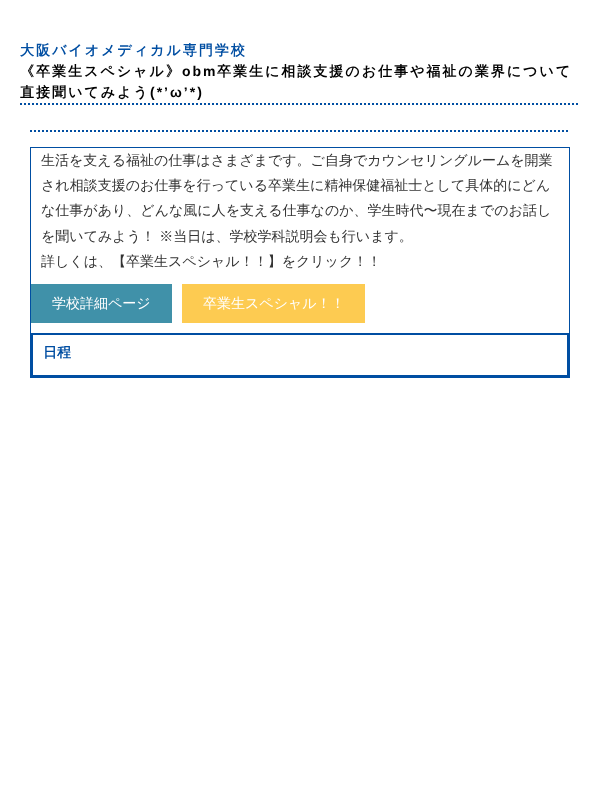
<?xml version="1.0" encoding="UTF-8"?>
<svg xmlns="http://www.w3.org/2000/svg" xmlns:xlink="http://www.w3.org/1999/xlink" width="604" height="805">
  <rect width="100%" height="100%" fill="#ffffff" />
  <path d="M 20 104 h 559" fill="none" stroke="#004ea2" stroke-width="2" stroke-dasharray="2 2" />
  <path d="M 30 131 h 540" fill="none" stroke="#004ea2" stroke-width="2" stroke-dasharray="2 2" />
  <rect x="30.5" y="147.5" width="539" height="230" fill="none" stroke="#004ea2" />
  <rect x="31" y="284" width="141" height="39" fill="#4091a9" />
  <rect x="182" y="284" width="183" height="39" fill="#fdcb51" />
  <rect x="32" y="334" width="536" height="42" fill="none" stroke="#004ea2" stroke-width="2" />
  <text x="20" y="55" style="font-family: WenQuanYi Zen Hei; font-size: 14px; font-weight: bold; letter-spacing: 2px; fill: #004ea2">大阪バイオメディカル専門学校</text>
  <text x="20" y="76" style="font-family: WenQuanYi Zen Hei; font-size: 14px; font-weight: bold; letter-spacing: 2px; fill: #000000">《卒業生スペシャル》</text>
  <text x="182" y="76" style="font-family: Liberation Sans; font-size: 14px; font-weight: bold; letter-spacing: 2px; fill: #000000">obm</text>
  <text x="217" y="76" style="font-family: WenQuanYi Zen Hei; font-size: 14px; font-weight: bold; letter-spacing: 2px; fill: #000000">卒業生に相談支援のお仕事や福祉の業界について</text>
  <text x="20" y="97" style="font-family: WenQuanYi Zen Hei; font-size: 14px; font-weight: bold; letter-spacing: 2px; fill: #000000">直接聞いてみよう</text>
  <text x="150" y="97" style="font-family: Liberation Sans; font-size: 14px; font-weight: bold; letter-spacing: 2px; fill: #000000">(*’ω’*)</text>
  <text x="41" y="165" style="font-family: WenQuanYi Zen Hei; font-size: 14px; font-weight: 500; fill: #333333">生活を支える福祉の仕事はさまざまです。ご自身でカウンセリングルームを開業</text>
  <text x="41" y="190" style="font-family: WenQuanYi Zen Hei; font-size: 14px; font-weight: 500; fill: #333333">され相談支援のお仕事を行っている卒業生に精神保健福祉士として具体的にどん</text>
  <text x="41" y="215" style="font-family: WenQuanYi Zen Hei; font-size: 14px; font-weight: 500; fill: #333333">な仕事があり、どんな風に人を支える仕事なのか、学生時代〜現在までのお話し</text>
  <text x="41" y="241" style="font-family: WenQuanYi Zen Hei; font-size: 14px; font-weight: 500; fill: #333333">を聞いてみよう！ ※当日は、学校学科説明会も行います。</text>
  <text x="41" y="266" style="font-family: WenQuanYi Zen Hei; font-size: 14px; font-weight: 500; fill: #333333">詳しくは、【卒業生スペシャル！！】をクリック！！</text>
  <text x="52" y="308" style="font-family: WenQuanYi Zen Hei; font-size: 14px; font-weight: 500; fill: #ffffff">学校詳細ページ</text>
  <text x="203" y="308" style="font-family: WenQuanYi Zen Hei; font-size: 14px; font-weight: 500; fill: #ffffff">卒業生スペシャル！！</text>
  <text x="43" y="357" style="font-family: WenQuanYi Zen Hei; font-size: 14px; font-weight: bold; fill: #004ea2">日程</text>
</svg>
